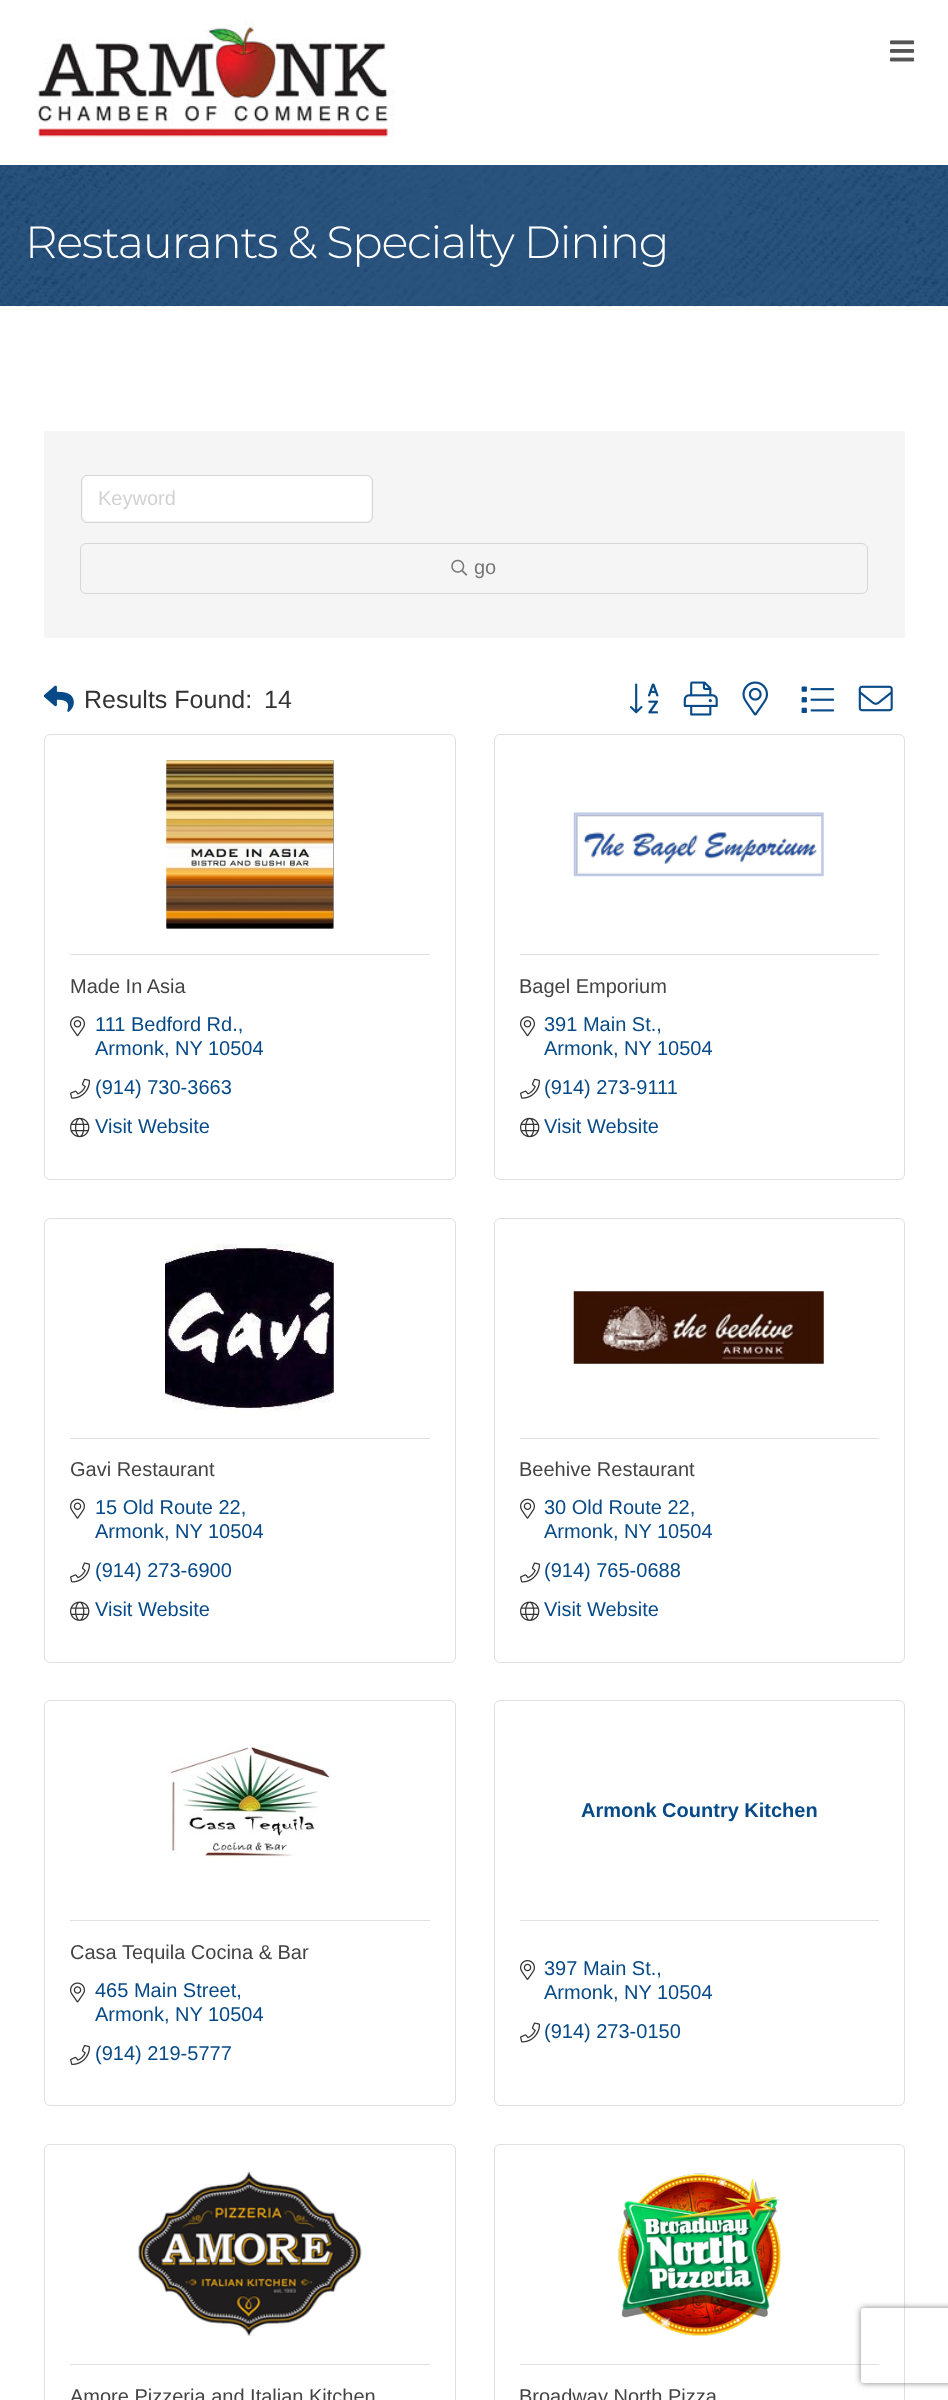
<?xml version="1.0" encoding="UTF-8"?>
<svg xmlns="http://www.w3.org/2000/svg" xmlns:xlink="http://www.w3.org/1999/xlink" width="948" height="2400">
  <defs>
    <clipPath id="clip1"><path d="M 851 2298 h 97 v 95 h -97 z m 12.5 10 h 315 c 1.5 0 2.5 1 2.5 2.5 v 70 c 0 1.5 -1 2.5 -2.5 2.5 h -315 c -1.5 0 -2.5 -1 -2.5 -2.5 v -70 c 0 -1.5 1 -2.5 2.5 -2.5 z" clip-rule="evenodd" /></clipPath>
  </defs>
  <rect width="100%" height="100%" fill="#ffffff" />
  <image x="35" y="19" width="360" height="120" xlink:href="image1.png" />
  <image x="890" y="40" width="25" height="22" xlink:href="image2.png" />
  <image x="0" y="165" width="948" height="142" xlink:href="image3.png" />
  <rect x="44" y="431" width="861" height="207" fill="#f5f5f5" />
  <rect x="83" y="476" width="288" height="45" rx="5" fill="#ffffff" />
  <rect x="81.5" y="475.5" width="291" height="47" rx="5.5" fill="none" stroke="#d6d6d6" />
  <rect x="80.5" y="543.5" width="787" height="50" rx="5.5" fill="none" stroke="#d6d6d6" />
  <image x="451" y="559" width="17" height="17" xlink:href="image4.png" />
  <image x="43" y="685" width="31" height="27" xlink:href="image5.png" />
  <image x="629" y="683" width="30" height="31" xlink:href="image6.png" />
  <image x="683" y="681" width="35" height="35" xlink:href="image7.png" />
  <image x="742" y="681" width="26" height="35" xlink:href="image8.png" />
  <image x="801" y="686" width="33" height="27" xlink:href="image9.png" />
  <image x="858" y="685" width="35" height="27" xlink:href="image10.png" />
  <rect x="44.5" y="734.5" width="411" height="445" rx="5.5" fill="none" stroke="#dfdfdf" />
  <image x="166" y="760" width="168" height="169" xlink:href="image11.png" />
  <rect x="70" y="954" width="360" height="1" fill="#dfdfdf" />
  <image x="70" y="1016" width="15" height="21" xlink:href="image12.png" />
  <image x="70" y="1078" width="20" height="21" xlink:href="image13.png" />
  <image x="70" y="1117" width="20" height="21" xlink:href="image14.png" />
  <rect x="494.5" y="734.5" width="410" height="445" rx="5.5" fill="none" stroke="#dfdfdf" />
  <image x="573" y="812" width="251" height="65" xlink:href="image15.png" />
  <rect x="520" y="954" width="359" height="1" fill="#dfdfdf" />
  <image x="520" y="1016" width="15" height="21" xlink:href="image12.png" />
  <image x="520" y="1078" width="20" height="21" xlink:href="image13.png" />
  <image x="520" y="1117" width="20" height="21" xlink:href="image14.png" />
  <rect x="44.5" y="1218.5" width="411" height="444" rx="5.5" fill="none" stroke="#dfdfdf" />
  <image x="165" y="1243" width="169" height="169" xlink:href="image16.png" />
  <rect x="70" y="1438" width="360" height="1" fill="#dfdfdf" />
  <image x="70" y="1498" width="15" height="21" xlink:href="image17.png" />
  <image x="70" y="1562" width="20" height="21" xlink:href="image18.png" />
  <image x="70" y="1601" width="20" height="20" xlink:href="image19.png" />
  <rect x="494.5" y="1218.5" width="410" height="444" rx="5.5" fill="none" stroke="#dfdfdf" />
  <image x="573" y="1291" width="251" height="73" xlink:href="image20.png" />
  <rect x="520" y="1438" width="359" height="1" fill="#dfdfdf" />
  <image x="520" y="1498" width="15" height="21" xlink:href="image17.png" />
  <image x="520" y="1562" width="20" height="21" xlink:href="image18.png" />
  <image x="520" y="1601" width="20" height="20" xlink:href="image19.png" />
  <rect x="44.5" y="1700.5" width="411" height="405" rx="5.5" fill="none" stroke="#dfdfdf" />
  <image x="166" y="1746" width="166" height="112" xlink:href="image21.png" />
  <rect x="70" y="1920" width="360" height="1" fill="#dfdfdf" />
  <image x="70" y="1982" width="15" height="21" xlink:href="image22.png" />
  <image x="70" y="2045" width="20" height="20" xlink:href="image23.png" />
  <rect x="494.5" y="1700.5" width="410" height="405" rx="5.5" fill="none" stroke="#dfdfdf" />
  <rect x="520" y="1920" width="359" height="1" fill="#dfdfdf" />
  <image x="520" y="1960" width="15" height="20" xlink:href="image24.png" />
  <image x="520" y="2022" width="20" height="21" xlink:href="image18.png" />
  <rect x="44.5" y="2144.5" width="411" height="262" rx="5.5" fill="none" stroke="#dfdfdf" />
  <image x="138" y="2171" width="224" height="166" xlink:href="image25.png" />
  <rect x="70" y="2364" width="360" height="1" fill="#dfdfdf" />
  <rect x="494.5" y="2144.5" width="410" height="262" rx="5.5" fill="none" stroke="#dfdfdf" />
  <image x="618" y="2173" width="163" height="163" xlink:href="image26.png" />
  <rect x="520" y="2364" width="359" height="1" fill="#dfdfdf" />
  <g clip-path="url(#clip1)">
    <rect x="861" y="2308" width="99" height="75" rx="2.5" fill="#808080" filter="blur(3px)" />
  </g>
  <text x="25" y="258" style="font-family: Montserrat; font-size: 45px; font-weight: 300; letter-spacing: -1.25px; fill: #ffffff">Restaurants &amp; Specialty Dining</text>
  <text x="98" y="505" style="font-family: Liberation Sans; font-size: 20px; fill: #d2d2d2">Keyword</text>
  <text x="474" y="574" style="font-family: Liberation Sans; font-size: 20px; fill: #777777">go</text>
  <text x="84" y="708" style="font-family: Liberation Sans; font-size: 25px; fill: #333333">Results Found:</text>
  <text x="264" y="708" style="font-family: Liberation Sans; font-size: 25px; fill: #333333">14</text>
  <text x="70" y="993" style="font-family: Liberation Sans; font-size: 20px; fill: #444444">Made In Asia</text>
  <text x="95" y="1031" style="font-family: Liberation Sans; font-size: 20px; fill: #074a87">111 Bedford Rd.,</text>
  <text x="95" y="1055" style="font-family: Liberation Sans; font-size: 20px; fill: #074a87">Armonk, NY</text>
  <text x="208" y="1055" style="font-family: Liberation Sans; font-size: 20px; fill: #074a87">10504</text>
  <text x="95" y="1094" style="font-family: Liberation Sans; font-size: 20px; fill: #074a87">(914) 730-3663</text>
  <text x="95" y="1133" style="font-family: Liberation Sans; font-size: 20px; fill: #074a87">Visit Website</text>
  <text x="519" y="993" style="font-family: Liberation Sans; font-size: 20px; fill: #444444">Bagel Emporium</text>
  <text x="544" y="1031" style="font-family: Liberation Sans; font-size: 20px; fill: #074a87">391 Main St.,</text>
  <text x="544" y="1055" style="font-family: Liberation Sans; font-size: 20px; fill: #074a87">Armonk, NY</text>
  <text x="657" y="1055" style="font-family: Liberation Sans; font-size: 20px; fill: #074a87">10504</text>
  <text x="544" y="1094" style="font-family: Liberation Sans; font-size: 20px; fill: #074a87">(914) 273-9111</text>
  <text x="544" y="1133" style="font-family: Liberation Sans; font-size: 20px; fill: #074a87">Visit Website</text>
  <text x="70" y="1476" style="font-family: Liberation Sans; font-size: 20px; fill: #444444">Gavi Restaurant</text>
  <text x="95" y="1514" style="font-family: Liberation Sans; font-size: 20px; fill: #074a87">15 Old Route 22,</text>
  <text x="95" y="1538" style="font-family: Liberation Sans; font-size: 20px; fill: #074a87">Armonk, NY</text>
  <text x="208" y="1538" style="font-family: Liberation Sans; font-size: 20px; fill: #074a87">10504</text>
  <text x="95" y="1577" style="font-family: Liberation Sans; font-size: 20px; fill: #074a87">(914) 273-6900</text>
  <text x="95" y="1616" style="font-family: Liberation Sans; font-size: 20px; fill: #074a87">Visit Website</text>
  <text x="519" y="1476" style="font-family: Liberation Sans; font-size: 20px; fill: #444444">Beehive Restaurant</text>
  <text x="544" y="1514" style="font-family: Liberation Sans; font-size: 20px; fill: #074a87">30 Old Route 22,</text>
  <text x="544" y="1538" style="font-family: Liberation Sans; font-size: 20px; fill: #074a87">Armonk, NY</text>
  <text x="657" y="1538" style="font-family: Liberation Sans; font-size: 20px; fill: #074a87">10504</text>
  <text x="544" y="1577" style="font-family: Liberation Sans; font-size: 20px; fill: #074a87">(914) 765-0688</text>
  <text x="544" y="1616" style="font-family: Liberation Sans; font-size: 20px; fill: #074a87">Visit Website</text>
  <text x="70" y="1959" style="font-family: Liberation Sans; font-size: 20px; fill: #444444">Casa Tequila Cocina &amp; Bar</text>
  <text x="95" y="1997" style="font-family: Liberation Sans; font-size: 20px; fill: #074a87">465 Main Street,</text>
  <text x="95" y="2021" style="font-family: Liberation Sans; font-size: 20px; fill: #074a87">Armonk, NY</text>
  <text x="208" y="2021" style="font-family: Liberation Sans; font-size: 20px; fill: #074a87">10504</text>
  <text x="95" y="2060" style="font-family: Liberation Sans; font-size: 20px; fill: #074a87">(914) 219-5777</text>
  <text x="581" y="1817" style="font-family: Liberation Sans; font-size: 20px; font-weight: bold; fill: #074a87">Armonk Country Kitchen</text>
  <text x="544" y="1975" style="font-family: Liberation Sans; font-size: 20px; fill: #074a87">397 Main St.,</text>
  <text x="544" y="1999" style="font-family: Liberation Sans; font-size: 20px; fill: #074a87">Armonk, NY</text>
  <text x="657" y="1999" style="font-family: Liberation Sans; font-size: 20px; fill: #074a87">10504</text>
  <text x="544" y="2038" style="font-family: Liberation Sans; font-size: 20px; fill: #074a87">(914) 273-0150</text>
  <text x="70" y="2403" style="font-family: Liberation Sans; font-size: 20px; fill: #444444">Amore Pizzeria and Italian Kitchen</text>
  <text x="519" y="2403" style="font-family: Liberation Sans; font-size: 20px; fill: #444444">Broadway North Pizza</text>
</svg>
